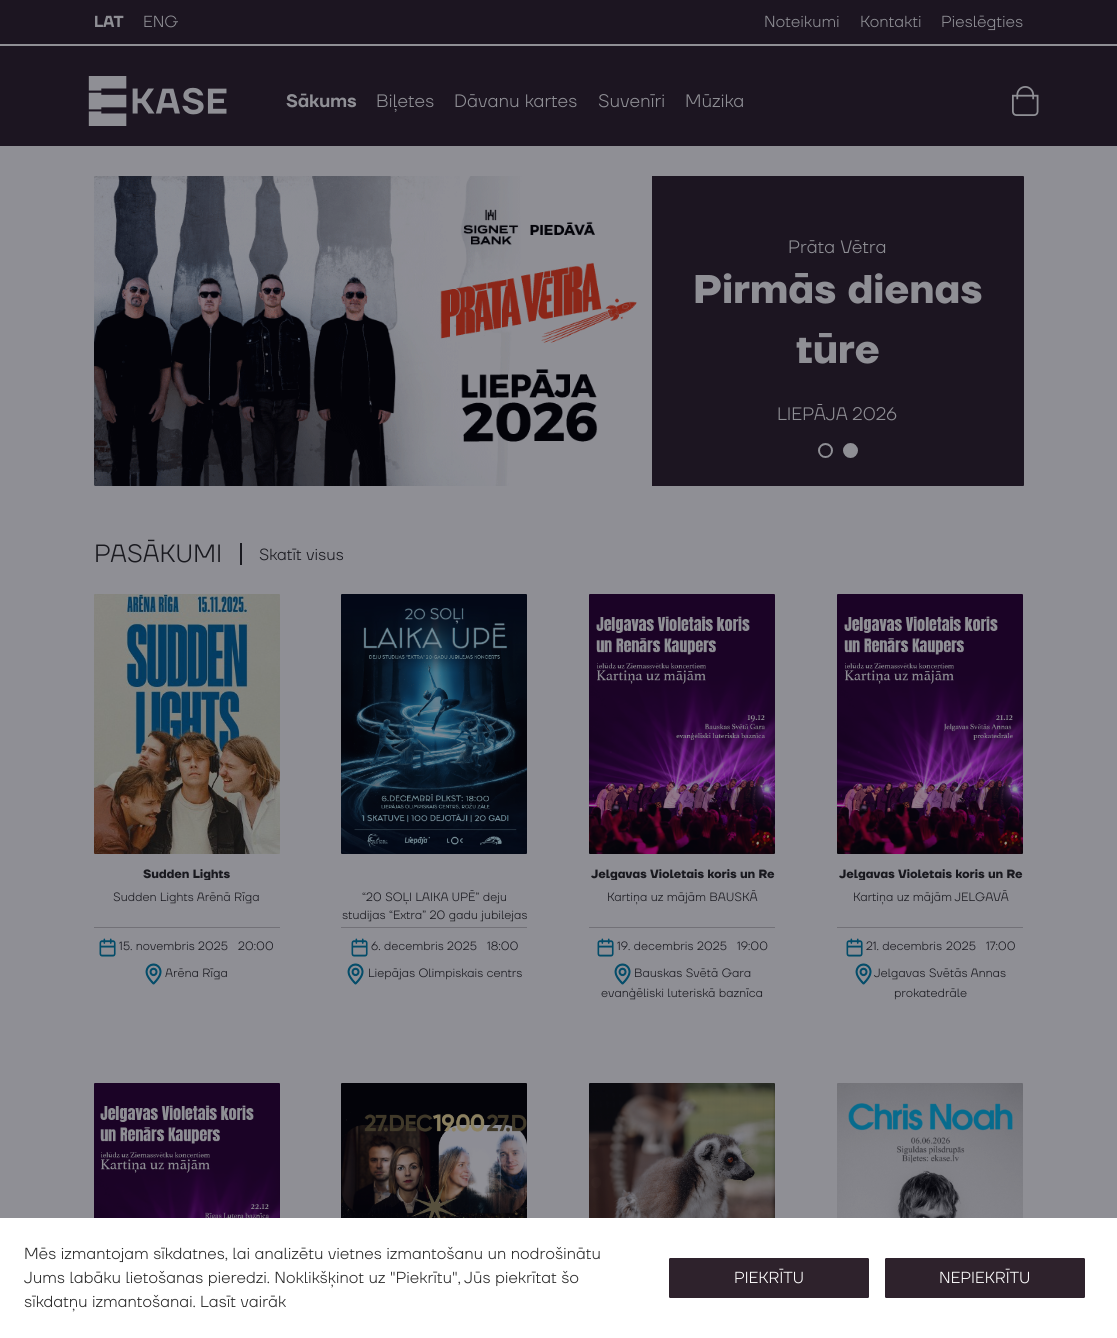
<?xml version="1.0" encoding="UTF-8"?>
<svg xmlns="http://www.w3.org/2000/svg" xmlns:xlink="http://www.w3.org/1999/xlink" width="1117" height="1338">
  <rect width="100%" height="100%" fill="#8f8f95" />
  <rect width="1117" height="146" fill="#1c1521" />
  <rect y="44" width="1117" height="2" fill="#8f8f95" />
  <image x="95" y="15" width="29" height="12" xlink:href="image1.png" />
  <image x="144" y="15" width="34" height="13" xlink:href="image2.png" />
  <image x="765" y="15" width="74" height="13" xlink:href="image3.png" />
  <image x="861" y="15" width="60" height="13" xlink:href="image4.png" />
  <image x="942" y="15" width="81" height="16" xlink:href="image5.png" />
  <image x="88" y="76" width="139" height="50" xlink:href="image6.png" />
  <image x="286" y="93" width="71" height="15" xlink:href="image7.png" />
  <image x="377" y="94" width="57" height="18" xlink:href="image8.png" />
  <image x="455" y="94" width="122" height="14" xlink:href="image9.png" />
  <image x="598" y="94" width="66" height="14" xlink:href="image10.png" />
  <image x="686" y="94" width="57" height="14" xlink:href="image11.png" />
  <image x="1012" y="86" width="27" height="30" xlink:href="image12.png" />
  <image x="94" y="176" width="543" height="310" xlink:href="image13.png" />
  <path d="M 652 176 h 371 c 0.5 0 1 0.5 1 1 v 308 c 0 0.5 -0.5 1 -1 1 h -371 z" fill="#1c1521" />
  <image x="789" y="240" width="97" height="14" xlink:href="image14.png" />
  <image x="695" y="273" width="287" height="31" xlink:href="image15.png" />
  <image x="796" y="333" width="83" height="31" xlink:href="image16.png" />
  <image x="778" y="404" width="119" height="17" xlink:href="image17.png" />
  <circle cx="825.5" cy="450.5" r="6.5" fill="none" stroke="#8f8f95" stroke-width="2" />
  <circle cx="850.5" cy="450.5" r="6.5" fill="#8f8f95" stroke="#8f8f95" stroke-width="2" />
  <image x="96" y="539" width="124" height="24" xlink:href="image18.png" />
  <rect x="240" y="543" width="2" height="22" fill="#19191f" />
  <image x="259" y="548" width="85" height="13" xlink:href="image19.png" />
  <image x="94" y="594" width="186" height="260" xlink:href="image20.png" />
  <rect x="94" y="927" width="186" height="1" fill="#727177" />
  <image x="143" y="869" width="87" height="11" xlink:href="image21.png" />
  <image x="113" y="892" width="146" height="12" xlink:href="image22.png" />
  <image x="99" y="938" width="17" height="19" xlink:href="image23.png" />
  <image x="119" y="941" width="76" height="10" xlink:href="image24.png" />
  <image x="198" y="941" width="30" height="10" xlink:href="image25.png" />
  <image x="238" y="941" width="35" height="10" xlink:href="image26.png" />
  <image x="145" y="963" width="17" height="22" xlink:href="image27.png" />
  <image x="165" y="968" width="62" height="12" xlink:href="image28.png" />
  <image x="341" y="594" width="186" height="260" xlink:href="image29.png" />
  <rect x="341" y="927" width="186" height="1" fill="#727177" />
  <image x="362" y="890" width="144" height="15" xlink:href="image30.png" />
  <image x="342" y="910" width="185" height="12" xlink:href="image31.png" />
  <image x="351" y="938" width="17" height="19" xlink:href="image23.png" />
  <image x="371" y="941" width="73" height="10" xlink:href="image32.png" />
  <image x="447" y="941" width="30" height="10" xlink:href="image25.png" />
  <image x="487" y="941" width="31" height="10" xlink:href="image33.png" />
  <image x="347" y="963" width="17" height="22" xlink:href="image27.png" />
  <image x="369" y="968" width="153" height="12" xlink:href="image34.png" />
  <image x="589" y="594" width="186" height="260" xlink:href="image35.png" />
  <rect x="589" y="927" width="186" height="1" fill="#727177" />
  <image x="591" y="869" width="184" height="11" xlink:href="image36.png" />
  <image x="608" y="890" width="150" height="15" xlink:href="image37.png" />
  <image x="597" y="938" width="17" height="19" xlink:href="image23.png" />
  <image x="617" y="941" width="76" height="10" xlink:href="image38.png" />
  <image x="697" y="941" width="30" height="10" xlink:href="image25.png" />
  <image x="737" y="941" width="31" height="10" xlink:href="image39.png" />
  <image x="614" y="963" width="17" height="22" xlink:href="image27.png" />
  <image x="635" y="968" width="116" height="10" xlink:href="image40.png" />
  <image x="601" y="987" width="162" height="13" xlink:href="image41.png" />
  <image x="837" y="594" width="186" height="260" xlink:href="image42.png" />
  <rect x="837" y="927" width="186" height="1" fill="#727177" />
  <image x="839" y="869" width="184" height="11" xlink:href="image36.png" />
  <image x="854" y="890" width="155" height="15" xlink:href="image43.png" />
  <image x="846" y="938" width="17" height="19" xlink:href="image23.png" />
  <image x="866" y="941" width="76" height="10" xlink:href="image44.png" />
  <image x="946" y="941" width="30" height="10" xlink:href="image25.png" />
  <image x="986" y="941" width="29" height="10" xlink:href="image45.png" />
  <image x="855" y="963" width="17" height="22" xlink:href="image27.png" />
  <image x="874" y="968" width="132" height="12" xlink:href="image46.png" />
  <image x="894" y="988" width="73" height="12" xlink:href="image47.png" />
  <image x="94" y="1083" width="186" height="135" xlink:href="image48.png" />
  <image x="341" y="1083" width="186" height="135" xlink:href="image49.png" />
  <image x="589" y="1083" width="186" height="135" xlink:href="image50.png" />
  <image x="837" y="1083" width="186" height="135" xlink:href="image51.png" />
  <rect y="1218" width="1117" height="120" fill="#ffffff" />
  <image x="25" y="1246" width="575" height="17" xlink:href="image52.png" />
  <image x="24" y="1270" width="555" height="18" xlink:href="image53.png" />
  <image x="24" y="1294" width="171" height="18" xlink:href="image54.png" />
  <image x="201" y="1295" width="85" height="13" xlink:href="image55.png" />
  <rect x="669.5" y="1258.5" width="199" height="39" rx="0.5" fill="#2e222c" stroke="#2e222c" />
  <image x="735" y="1268" width="68" height="16" xlink:href="image56.png" />
  <rect x="885.5" y="1258.5" width="199" height="39" rx="0.5" fill="#2e222c" stroke="#2e222c" />
  <image x="940" y="1268" width="89" height="16" xlink:href="image57.png" />
</svg>
